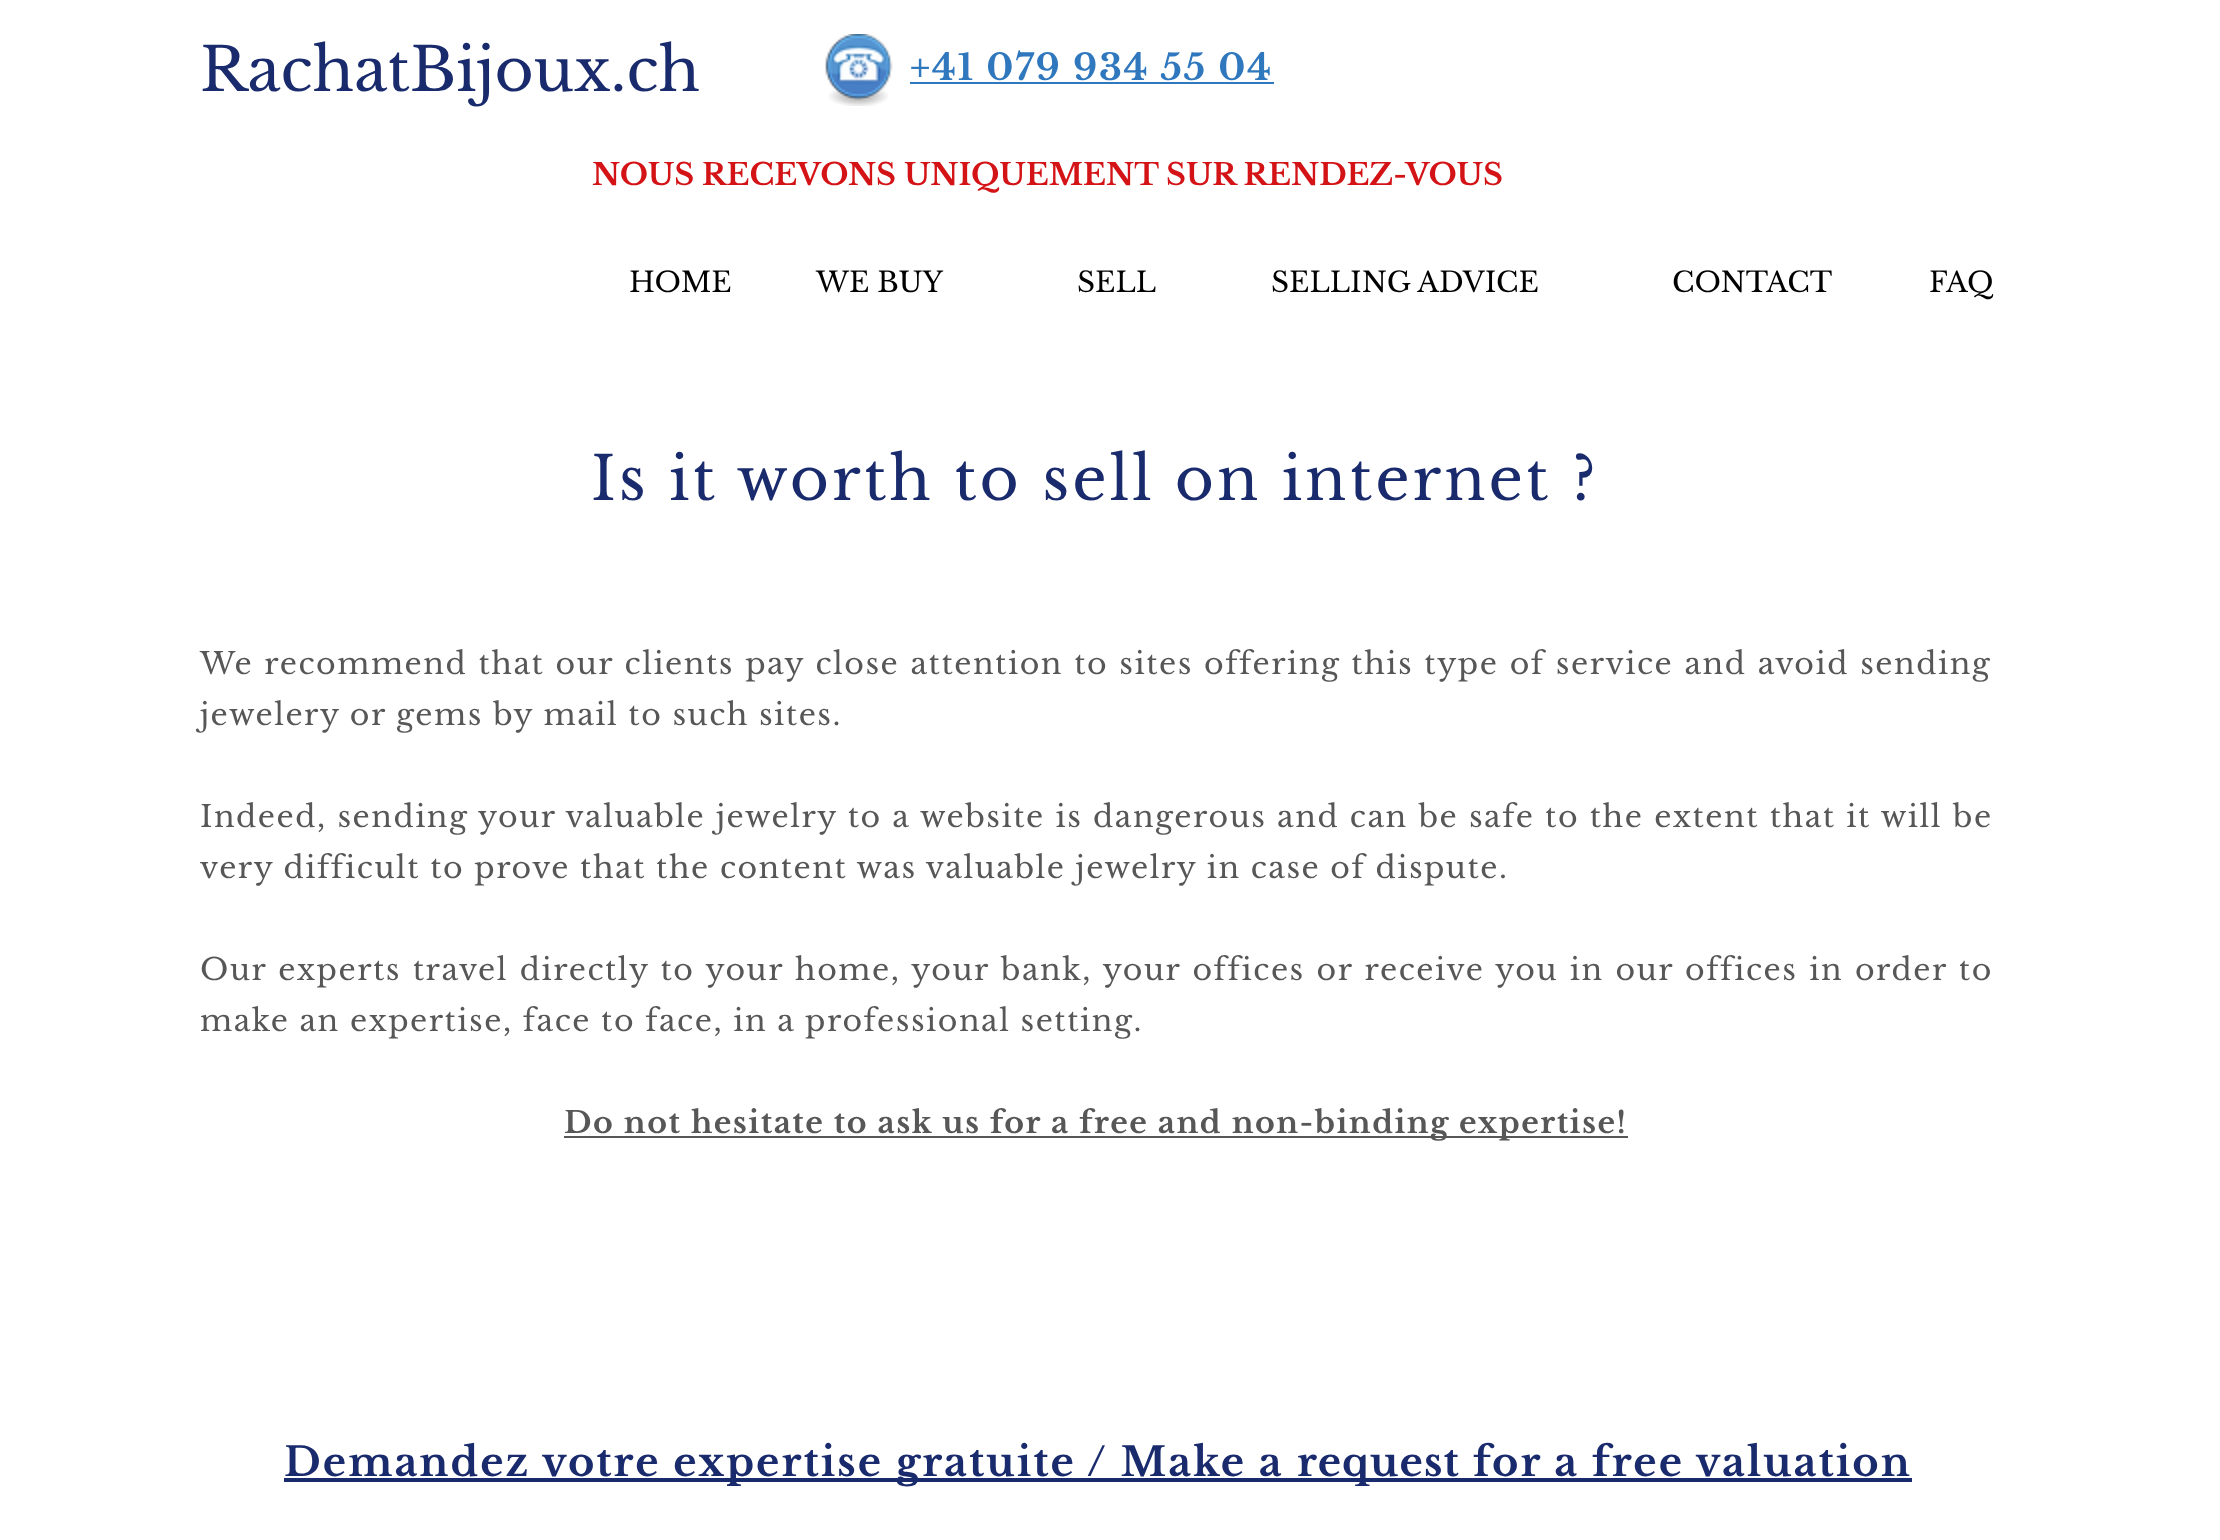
<?xml version="1.0" encoding="UTF-8"?>
<svg xmlns="http://www.w3.org/2000/svg" xmlns:xlink="http://www.w3.org/1999/xlink" width="2220" height="1540">
  <rect width="100%" height="100%" fill="#ffffff" />
  <image x="825" y="34" width="68" height="72" xlink:href="image1.png" />
  <rect x="910" y="82" width="364" height="2" fill="#3078be" />
  <rect x="564" y="1136" width="1064" height="2" fill="#575757" />
  <rect x="284" y="1478" width="1628" height="4" fill="#1a2b6d" />
  <text x="200" y="91" style="font-family: Libre Baskerville; font-size: 60px; fill: #1a2b6d">RachatBijoux.ch</text>
  <text x="910" y="80" style="font-family: Libre Baskerville; font-size: 36px; font-weight: bold; letter-spacing: 1.75px; fill: #3078be">+41 079 934 55 04</text>
  <text x="592" y="185" style="font-family: Libre Baskerville; font-size: 30px; font-weight: bold; fill: #d41317">NOUS RECEVONS UNIQUEMENT SUR RENDEZ-VOUS</text>
  <text x="629" y="292" style="font-family: Libre Baskerville; font-size: 28px; fill: #000000">HOME</text>
  <text x="816" y="292" style="font-family: Libre Baskerville; font-size: 28px; fill: #000000">WE BUY</text>
  <text x="1077" y="292" style="font-family: Libre Baskerville; font-size: 28px; fill: #000000">SELL</text>
  <text x="1271" y="292" style="font-family: Libre Baskerville; font-size: 28px; fill: #000000">SELLING ADVICE</text>
  <text x="1672" y="292" style="font-family: Libre Baskerville; font-size: 28px; fill: #000000">CONTACT</text>
  <text x="1929" y="292" style="font-family: Libre Baskerville; font-size: 28px; fill: #000000">FAQ</text>
  <text x="591" y="500" style="font-family: Libre Baskerville; font-size: 60px; letter-spacing: 3px; fill: #1a2b6d">Is it worth to sell on internet ?</text>
  <text x="200" y="674" word-spacing="1.1" style="font-family: Libre Baskerville; font-size: 30px; letter-spacing: 1.5px; fill: #575757">We recommend that our clients pay close attention to sites offering this type of service and avoid sending</text>
  <text x="200" y="725" style="font-family: Libre Baskerville; font-size: 30px; letter-spacing: 1.5px; fill: #575757">jewelery or gems by mail to such sites.</text>
  <text x="200" y="827" word-spacing="0.6" style="font-family: Libre Baskerville; font-size: 30px; letter-spacing: 1.5px; fill: #575757">Indeed, sending your valuable jewelry to a website is dangerous and can be safe to the extent that it will be</text>
  <text x="200" y="878" style="font-family: Libre Baskerville; font-size: 30px; letter-spacing: 1.5px; fill: #575757">very difficult to prove that the content was valuable jewelry in case of dispute.</text>
  <text x="200" y="980" word-spacing="1.7" style="font-family: Libre Baskerville; font-size: 30px; letter-spacing: 1.5px; fill: #575757">Our experts travel directly to your home, your bank, your offices or receive you in our offices in order to</text>
  <text x="200" y="1031" style="font-family: Libre Baskerville; font-size: 30px; letter-spacing: 1.5px; fill: #575757">make an expertise, face to face, in a professional setting.</text>
  <text x="564" y="1133" style="font-family: Libre Baskerville; font-size: 30px; font-weight: bold; letter-spacing: 1.5px; fill: #575757">Do not hesitate to ask us for a free and non-binding expertise!</text>
  <text x="284" y="1476" style="font-family: Libre Baskerville; font-size: 40px; font-weight: bold; letter-spacing: 2px; fill: #1a2b6d">Demandez votre expertise gratuite / Make a</text>
  <text x="1297" y="1476" style="font-family: Libre Baskerville; font-size: 40px; font-weight: bold; letter-spacing: 1px; fill: #1a2b6d">request</text>
  <text x="1473" y="1476" style="font-family: Libre Baskerville; font-size: 40px; font-weight: bold; letter-spacing: 2px; fill: #1a2b6d">for a free valuation</text>
</svg>
